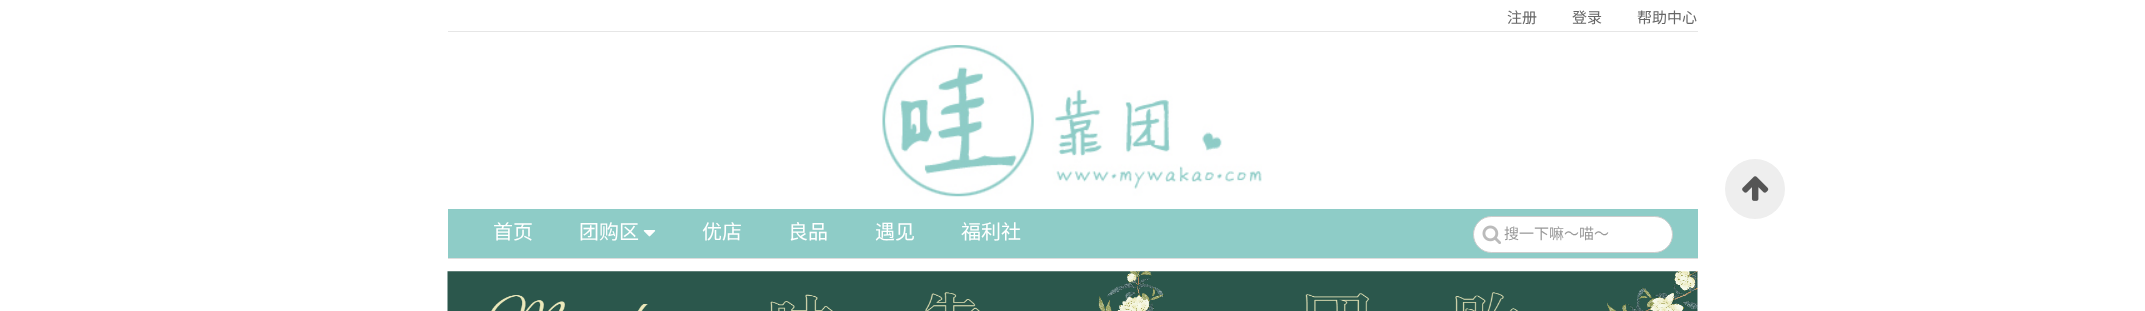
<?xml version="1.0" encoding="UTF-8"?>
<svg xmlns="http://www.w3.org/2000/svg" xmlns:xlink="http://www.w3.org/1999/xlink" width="2145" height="311">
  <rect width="100%" height="100%" fill="#ffffff" />
  <rect x="448" y="31" width="1250" height="1" fill="#e6e6e6" />
  <image x="882" y="45" width="380" height="152" xlink:href="image1.png" />
  <rect x="448" y="209" width="1250" height="49" fill="#8eccc7" />
  <rect x="448" y="258" width="1250" height="1" fill="#dddddd" />
  <image x="643" y="230" width="13" height="7" xlink:href="image2.png" />
  <rect x="1473.5" y="216.5" width="199" height="36" rx="18" fill="#ffffff" stroke="#cccccc" />
  <image x="1482" y="225" width="19" height="19" xlink:href="image3.png" />
  <image x="447" y="271" width="1251" height="40" xlink:href="image4.png" />
  <circle cx="1755" cy="189" r="30" fill="#eeeeee" />
  <image x="1742" y="176" width="27" height="25" xlink:href="image5.png" />
  <text x="1507" y="23" style="font-family: Noto Sans CJK SC; font-size: 15px; fill: #666666">注册</text>
  <text x="1572" y="23" style="font-family: Noto Sans CJK SC; font-size: 15px; fill: #666666">登录</text>
  <text x="1637" y="23" style="font-family: Noto Sans CJK SC; font-size: 15px; fill: #666666">帮助中心</text>
  <text x="493" y="239" style="font-family: Noto Sans CJK SC; font-size: 20px; fill: #ffffff">首页</text>
  <text x="579" y="239" style="font-family: Noto Sans CJK SC; font-size: 20px; fill: #ffffff">团购区</text>
  <text x="702" y="239" style="font-family: Noto Sans CJK SC; font-size: 20px; fill: #ffffff">优店</text>
  <text x="788" y="239" style="font-family: Noto Sans CJK SC; font-size: 20px; fill: #ffffff">良品</text>
  <text x="875" y="239" style="font-family: Noto Sans CJK SC; font-size: 20px; fill: #ffffff">遇见</text>
  <text x="961" y="239" style="font-family: Noto Sans CJK SC; font-size: 20px; fill: #ffffff">福利社</text>
  <text x="1504" y="239" style="font-family: Noto Sans CJK SC; font-size: 15px; fill: #999999">搜一下嘛～喵～</text>
</svg>
